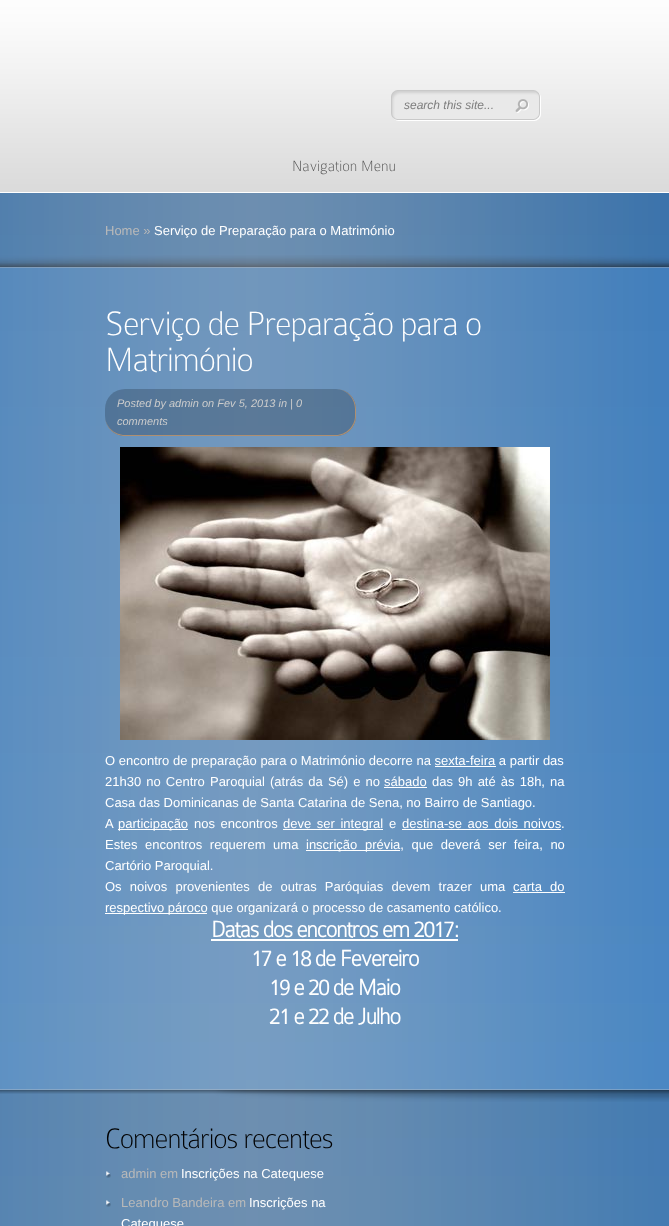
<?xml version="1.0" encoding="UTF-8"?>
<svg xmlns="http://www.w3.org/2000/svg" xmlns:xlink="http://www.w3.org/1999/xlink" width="669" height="1226">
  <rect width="100%" height="100%" fill="#ffffff" />
  <image x="0" y="193" width="669" height="1033" xlink:href="image1.png" />
  <image x="0" y="0" width="669" height="192" xlink:href="image2.png" />
  <image x="391" y="90" width="150" height="31" xlink:href="image3.png" />
  <image x="515" y="99" width="14" height="14" xlink:href="image4.png" />
  <image x="0" y="263" width="669" height="5" xlink:href="image5.png" />
  <image x="0" y="255" width="669" height="13" xlink:href="image6.png" />
  <rect y="193" width="669" height="75" fill="#000000" fill-opacity="0.09" />
  <image x="0" y="193" width="669" height="75" xlink:href="image7.png" />
  <image x="0" y="268" width="669" height="958" xlink:href="image8.png" />
  <rect x="105" y="389" width="251" height="47" rx="20" fill="#000000" fill-opacity="0.2" />
  <path d="M 125 389 h 211 c 11 0 20 9 20 20 v 7 c 0 11 -9 20 -20 20 h -211 c -11 0 -20 -9 -20 -20 v -7 c 0 -11 9 -20 20 -20 z m 0 0 h 211 c 10 0 19 9 19 20 v 7 c 0 10 -9 19 -19 19 h -211 c -11 0 -20 -9 -20 -19 v -7 c 0 -11 9 -20 20 -20 z" fill="#af8f70" fill-rule="evenodd" />
  <image x="120" y="447" width="430" height="293" xlink:href="image9.png" />
  <rect x="435" y="766" width="61" height="1" fill="#ffffff" />
  <rect x="384" y="787" width="43" height="1" fill="#ffffff" />
  <rect x="118" y="829" width="70" height="1" fill="#ffffff" />
  <rect x="283" y="829" width="100" height="1" fill="#ffffff" />
  <rect x="402" y="829" width="159" height="1" fill="#ffffff" />
  <rect x="306" y="850" width="94" height="1" fill="#ffffff" />
  <rect x="513" y="892" width="52" height="1" fill="#ffffff" />
  <rect x="105" y="913" width="102" height="1" fill="#ffffff" />
  <rect x="211" y="939" width="247" height="2" fill="#ffffff" />
  <rect y="1089" width="669" height="137" fill="#000000" fill-opacity="0.09" />
  <image x="0" y="1089" width="669" height="5" xlink:href="image10.png" />
  <image x="0" y="1089" width="669" height="13" xlink:href="image11.png" />
  <image x="106" y="1171" width="5" height="7" xlink:href="image12.png" />
  <image x="106" y="1200" width="5" height="7" xlink:href="image13.png" />
  <text x="404" y="109" style="font-family: Liberation Sans; font-size: 12px; font-style: italic; fill: #7d7d7d">search this site...</text>
  <text x="292" y="171" style="font-family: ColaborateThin; font-size: 16px; font-weight: 100; fill: #535353">Navigation Menu</text>
  <text x="105" y="235" style="font-family: Liberation Sans; font-size: 13px; fill: #b9b9b9">Home »</text>
  <text x="154" y="235" style="font-family: Liberation Sans; font-size: 13px; fill: #ffffff">Serviço de Preparação para o Matrimónio</text>
  <text x="105" y="335" style="font-family: ColaborateThin; font-size: 36px; font-weight: 100; letter-spacing: -1px; fill: #ffffff">Serviço de Preparação para o</text>
  <text x="105" y="371" style="font-family: ColaborateThin; font-size: 36px; font-weight: 100; letter-spacing: -1px; fill: #ffffff">Matrimónio</text>
  <text x="117" y="407" style="font-family: Liberation Sans; font-size: 11px; font-style: italic; fill: #cccccc">Posted by admin on Fev 5, 2013 in | 0</text>
  <text x="117" y="425" style="font-family: Liberation Sans; font-size: 11px; font-style: italic; fill: #cccccc">comments</text>
  <text x="105" y="765" style="font-family: Liberation Sans; font-size: 13px; fill: #ffffff">O encontro de preparação para o Matrimónio decorre na sexta-feira a partir das</text>
  <text x="105" y="786" word-spacing="1.5" style="font-family: Liberation Sans; font-size: 13px; fill: #ffffff">21h30 no Centro Paroquial (atrás da Sé) e no</text>
  <text x="384" y="786" style="font-family: Liberation Sans; font-size: 13px; fill: #ffffff">sábado</text>
  <text x="432" y="786" word-spacing="1.5" style="font-family: Liberation Sans; font-size: 13px; fill: #ffffff">das 9h até às 18h, na</text>
  <text x="105" y="807" style="font-family: Liberation Sans; font-size: 13px; fill: #ffffff">Casa das Dominicanas de Santa Catarina de Sena, no Bairro de Santiago.</text>
  <text x="105" y="828" style="font-family: Liberation Sans; font-size: 13px; fill: #ffffff">A</text>
  <text x="118" y="828" style="font-family: Liberation Sans; font-size: 13px; fill: #ffffff">participação</text>
  <text x="194" y="828" word-spacing="2" style="font-family: Liberation Sans; font-size: 13px; fill: #ffffff">nos encontros</text>
  <text x="283" y="828" word-spacing="2" style="font-family: Liberation Sans; font-size: 13px; fill: #ffffff">deve ser integral</text>
  <text x="389" y="828" style="font-family: Liberation Sans; font-size: 13px; fill: #ffffff">e</text>
  <text x="402" y="828" word-spacing="2" style="font-family: Liberation Sans; font-size: 13px; fill: #ffffff">destina-se aos dois noivos</text>
  <text x="561" y="828" style="font-family: Liberation Sans; font-size: 13px; fill: #ffffff">.</text>
  <text x="105" y="849" word-spacing="4" style="font-family: Liberation Sans; font-size: 13px; fill: #ffffff">Estes encontros requerem uma</text>
  <text x="306" y="849" word-spacing="4" style="font-family: Liberation Sans; font-size: 13px; fill: #ffffff">inscrição prévia, que deverá ser feira, no</text>
  <text x="105" y="870" style="font-family: Liberation Sans; font-size: 13px; fill: #ffffff">Cartório Paroquial.</text>
  <text x="105" y="891" word-spacing="4.5" style="font-family: Liberation Sans; font-size: 13px; fill: #ffffff">Os noivos provenientes de outras Paróquias devem trazer uma</text>
  <text x="513" y="891" word-spacing="4.5" style="font-family: Liberation Sans; font-size: 13px; fill: #ffffff">carta do</text>
  <text x="105" y="912" style="font-family: Liberation Sans; font-size: 13px; fill: #ffffff">respectivo pároco que organizará o processo de casamento católico.</text>
  <text x="211" y="937" style="font-family: ColaborateThin; font-size: 24px; font-weight: bold; letter-spacing: -1px; fill: #ffffff">Datas dos encontros em 2017:</text>
  <text x="251" y="966" style="font-family: ColaborateThin; font-size: 24px; font-weight: bold; letter-spacing: -1px; fill: #ffffff">17 e 18 de Fevereiro</text>
  <text x="269" y="995" style="font-family: ColaborateThin; font-size: 24px; font-weight: bold; letter-spacing: -1px; fill: #ffffff">19 e 20 de Maio</text>
  <text x="269" y="1024" style="font-family: ColaborateThin; font-size: 24px; font-weight: bold; letter-spacing: -1px; fill: #ffffff">21 e 22 de Julho</text>
  <text x="105" y="1148" style="font-family: ColaborateThin; font-size: 30px; font-weight: 100; letter-spacing: -1px; fill: #000000">Comentários recentes</text>
  <text x="121" y="1178" style="font-family: Liberation Sans; font-size: 13px; fill: #b9b9b9">admin em</text>
  <text x="181" y="1178" style="font-family: Liberation Sans; font-size: 13px; fill: #ffffff">Inscrições na Catequese</text>
  <text x="121" y="1207" style="font-family: Liberation Sans; font-size: 13px; fill: #b9b9b9">Leandro Bandeira em</text>
  <text x="249" y="1207" style="font-family: Liberation Sans; font-size: 13px; fill: #ffffff">Inscrições na</text>
  <text x="121" y="1228" style="font-family: Liberation Sans; font-size: 13px; fill: #ffffff">Catequese</text>
</svg>
